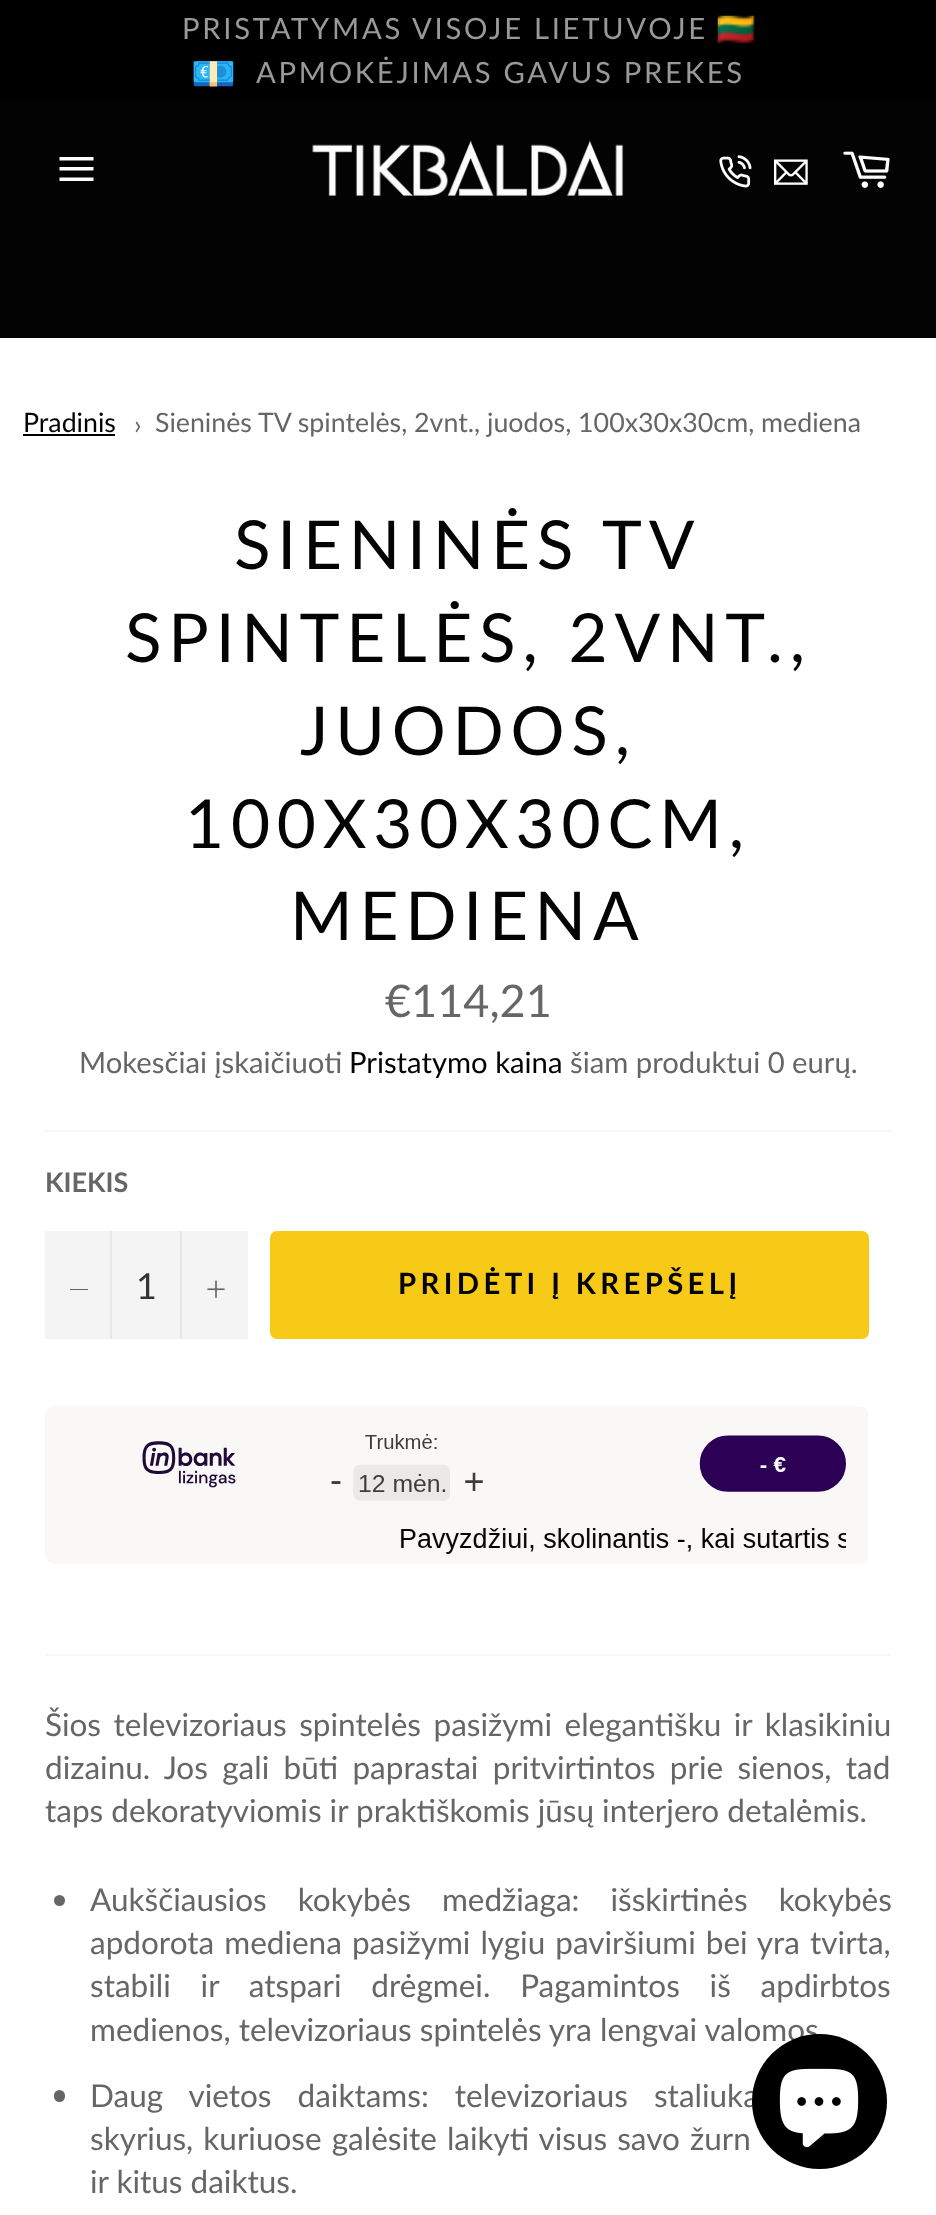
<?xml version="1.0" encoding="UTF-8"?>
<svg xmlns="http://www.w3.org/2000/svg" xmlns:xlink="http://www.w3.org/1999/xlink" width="936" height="2215">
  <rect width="100%" height="100%" fill="#030303" />
  <rect width="936" height="99" fill="#000000" />
  <image x="717" y="15" width="38" height="29" xlink:href="image1.png" />
  <path d="M 59.5 167 h 34 v 3.5 h -34 z m 0 -10 h 34 v 3.5 h -34 z m 0 20.5 h 34 v 3.5 h -34 z" fill="#ffffff" />
  <image x="312" y="140" width="312" height="57" xlink:href="image2.png" />
  <image x="719" y="155" width="33" height="33" xlink:href="image3.png" />
  <image x="774" y="159" width="34" height="26" xlink:href="image4.png" />
  <image x="843" y="151" width="47" height="37" xlink:href="image5.png" />
  <rect y="338" width="936" height="1877" fill="#ffffff" />
  <rect x="23" y="434" width="92" height="2" fill="#000000" />
  <rect x="45" y="1130" width="846" height="2" fill="#f7f7f7" />
  <rect x="45" y="1231" width="203" height="108" fill="#f4f4f4" />
  <rect x="110" y="1231" width="2" height="108" fill="#e7e7e7" />
  <rect x="70" y="1289" width="18" height="1" fill="#666666" />
  <rect x="180" y="1231" width="2" height="108" fill="#e7e7e7" />
  <image x="207" y="1280" width="18" height="18" xlink:href="image6.png" />
  <rect x="270" y="1231" width="599" height="108" rx="7" fill="#f7ca18" />
  <image x="45" y="1406" width="823" height="158" xlink:href="image7.png" />
  <rect x="45" y="1654" width="846" height="2" fill="#f7f7f7" />
  <circle cx="59.5" cy="1900.5" r="5.5" fill="#666666" />
  <rect x="54" y="2090" width="11" height="12" rx="5.5" fill="#666666" />
  <text x="182" y="39" style="font-family: Lato; font-size: 29.25px; letter-spacing: 2.7px; fill: #999999">PRISTATYMAS VISOJE LIETUVOJE</text>
  <text x="191" y="86" style="font-family: Noto Color Emoji; font-size: 36px; fill: #666666">💶</text>
  <text x="256" y="83" style="font-family: Lato; font-size: 29.25px; letter-spacing: 2.7px; fill: #999999">APMOKĖJIMAS GAVUS PREKES</text>
  <text x="23" y="432" style="font-family: Lato; font-size: 26.75px; fill: #030303">Pradinis</text>
  <text x="134" y="434" style="font-family: Lato; font-size: 26.75px; fill: #666666">›</text>
  <text x="155" y="432" style="font-family: Lato; font-size: 26.75px; fill: #666666">Sieninės TV spintelės, 2vnt., juodos, 100x30x30cm, mediena</text>
  <text x="234" y="569" style="font-family: Lato; font-size: 67.5px; letter-spacing: 6.75px; fill: #030303">SIENINĖS TV</text>
  <text x="125" y="662" style="font-family: Lato; font-size: 67.5px; letter-spacing: 6.75px; fill: #030303">SPINTELĖS, 2VNT.,</text>
  <text x="300" y="755" style="font-family: Lato; font-size: 67.5px; letter-spacing: 6.75px; fill: #030303">JUODOS,</text>
  <text x="185" y="848" style="font-family: Lato; font-size: 67.5px; letter-spacing: 6.75px; fill: #030303">100X30X30CM,</text>
  <text x="290" y="940" style="font-family: Lato; font-size: 67.5px; letter-spacing: 6.75px; fill: #030303">MEDIENA</text>
  <text x="385" y="1017" style="font-family: Lato; font-size: 45px; fill: #666666">€114,21</text>
  <text x="79" y="1073" style="font-family: Lato; font-size: 29.25px; fill: #666666">Mokesčiai įskaičiuoti</text>
  <text x="349" y="1073" style="font-family: Lato; font-size: 29.25px; fill: #030303">Pristatymo kaina</text>
  <text x="570" y="1073" style="font-family: Lato; font-size: 29.25px; fill: #666666">šiam produktui 0 eurų.</text>
  <text x="45" y="1192" style="font-family: Lato; font-size: 27px; font-weight: bold; fill: #666666">KIEKIS</text>
  <text x="136" y="1299" style="font-family: Lato; font-size: 36px; fill: #333333">1</text>
  <text x="398" y="1294" style="font-family: Lato; font-size: 29.25px; font-weight: bold; letter-spacing: 4.4px; fill: #030303">PRIDĖTI Į KREPŠELĮ</text>
  <text x="45" y="1736" word-spacing="4.5" style="font-family: Lato; font-size: 31.5px; fill: #666666">Šios televizoriaus spintelės pasižymi elegantišku ir klasikiniu</text>
  <text x="45" y="1779" word-spacing="6.25" style="font-family: Lato; font-size: 31.5px; fill: #666666">dizainu. Jos gali būti paprastai pritvirtintos prie sienos, tad</text>
  <text x="45" y="1822" style="font-family: Lato; font-size: 31.5px; fill: #666666">taps dekoratyviomis ir praktiškomis jūsų interjero detalėmis.</text>
  <text x="90" y="1911" word-spacing="23" style="font-family: Lato; font-size: 31.5px; fill: #666666">Aukščiausios kokybės medžiaga: išskirtinės kokybės</text>
  <text x="90" y="1954" word-spacing="2" style="font-family: Lato; font-size: 31.5px; fill: #666666">apdorota mediena pasižymi lygiu paviršiumi bei yra tvirta,</text>
  <text x="90" y="1997" word-spacing="21.75" style="font-family: Lato; font-size: 31.5px; fill: #666666">stabili ir atspari drėgmei. Pagamintos iš apdirbtos</text>
  <text x="90" y="2041" style="font-family: Lato; font-size: 31.5px; fill: #666666">medienos, televizoriaus spintelės yra lengvai valomos</text>
  <text x="90" y="2107" word-spacing="18" style="font-family: Lato; font-size: 31.5px; fill: #666666">Daug vietos daiktams: televizoriaus staliuka</text>
  <text x="90" y="2150" word-spacing="2" style="font-family: Lato; font-size: 31.5px; fill: #666666">skyrius, kuriuose galėsite laikyti visus savo žurn</text>
  <text x="90" y="2193" style="font-family: Lato; font-size: 31.5px; fill: #666666">ir kitus daiktus.</text>
  <circle cx="819.5" cy="2101.5" r="67.5" fill="#000000" />
  <image x="779" y="2068" width="80" height="80" xlink:href="image8.png" />
</svg>
